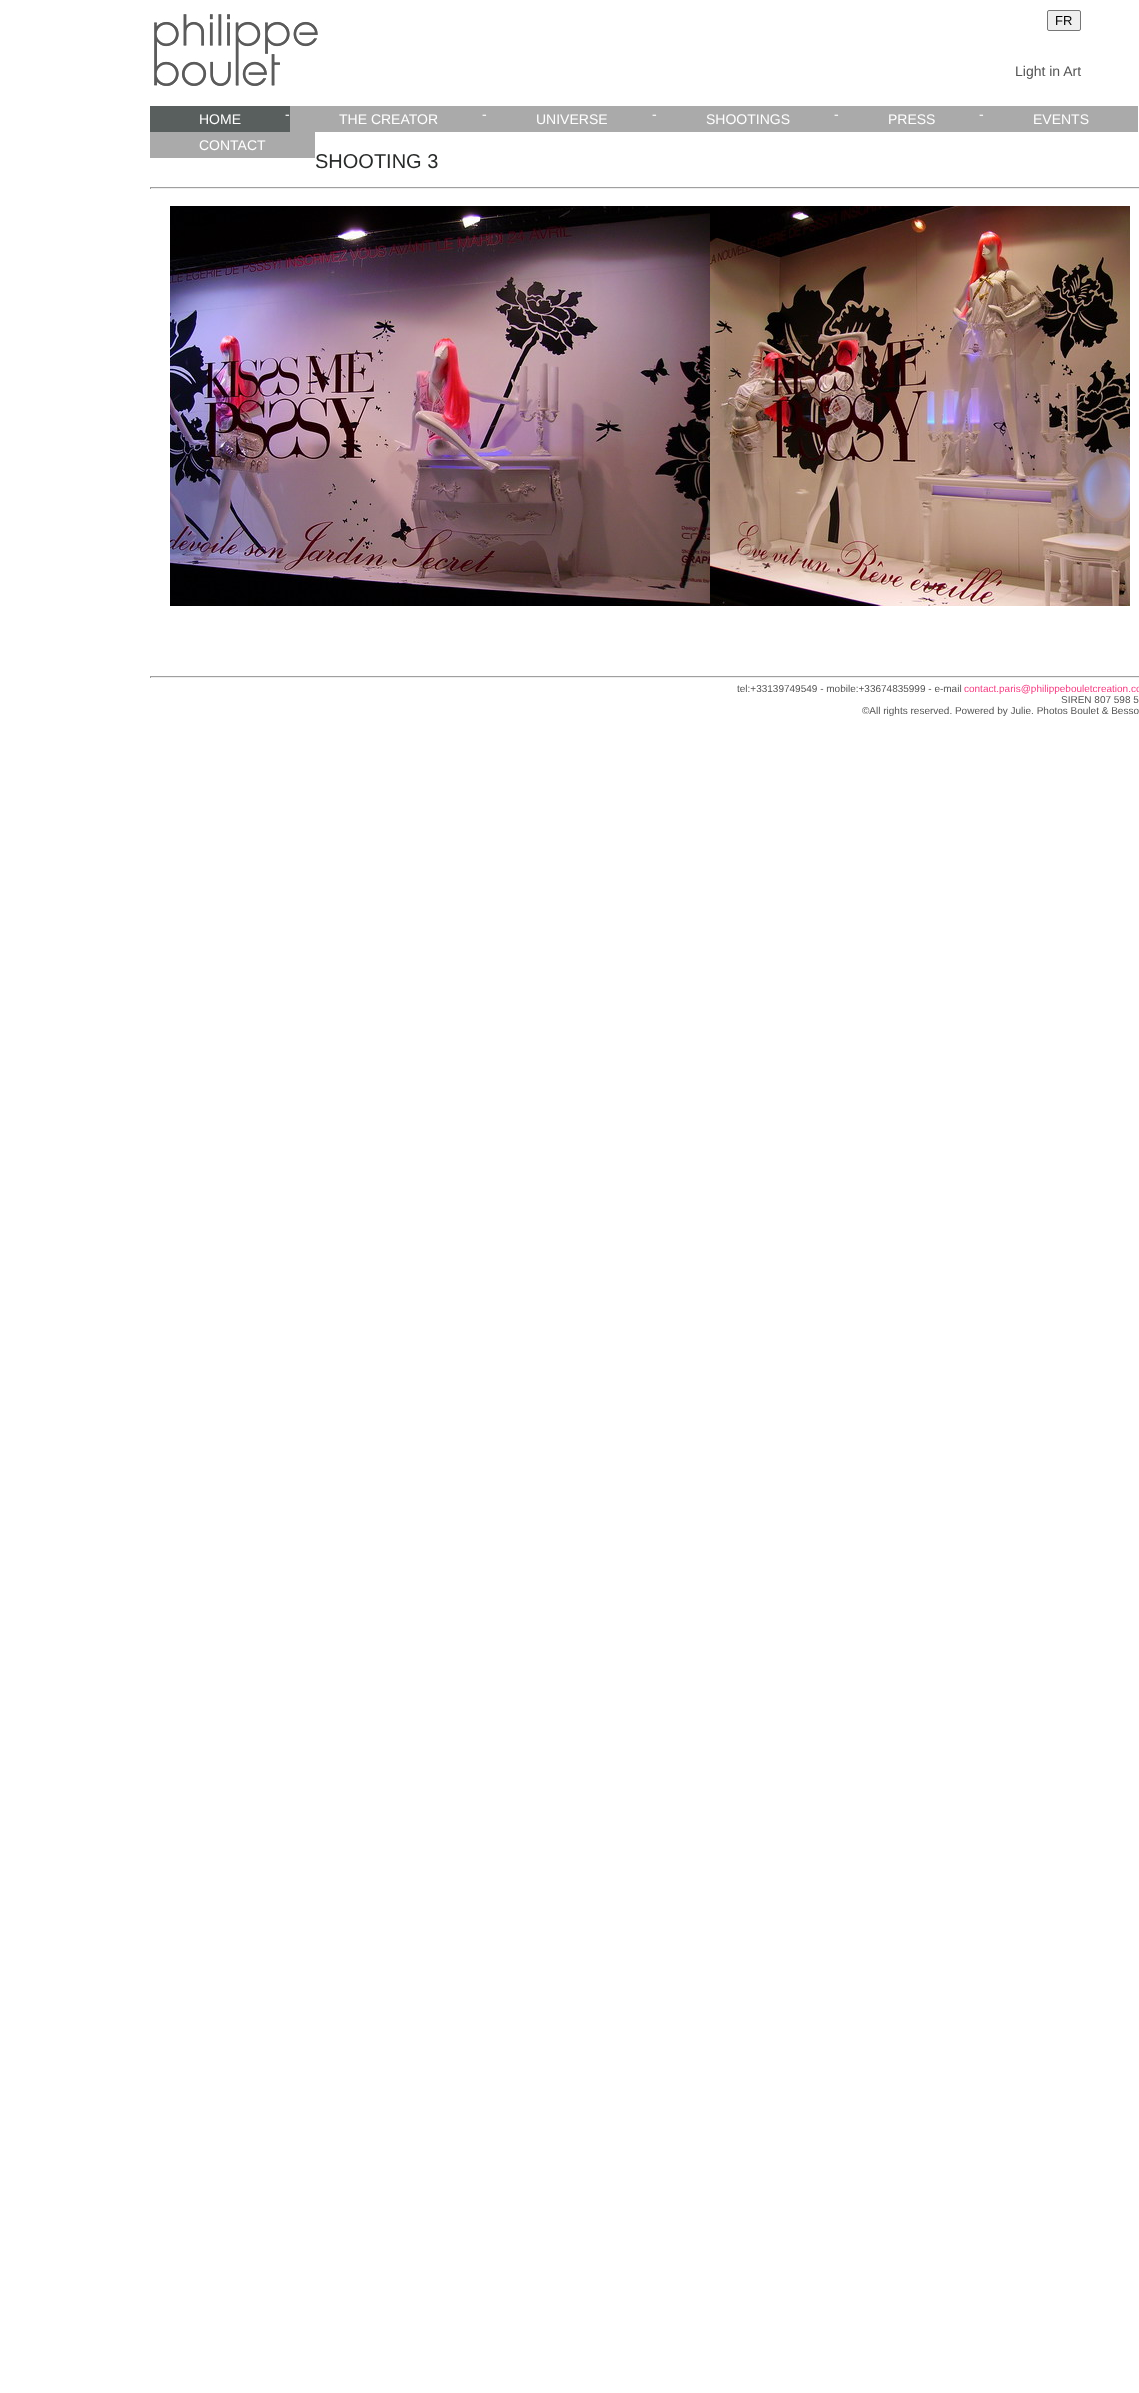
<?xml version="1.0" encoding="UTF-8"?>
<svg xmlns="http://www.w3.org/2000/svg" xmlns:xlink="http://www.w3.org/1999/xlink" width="1139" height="2393">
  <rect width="100%" height="100%" fill="#ffffff" />
  <image x="154" y="14" width="164" height="72" xlink:href="image1.png" />
  <rect x="1047.5" y="10.5" width="33" height="20" rx="1.5" fill="#efefef" stroke="#767676" />
  <rect x="150" y="106" width="140" height="26" fill="#595f5e" />
  <rect x="290" y="106" width="848" height="26" fill="#aaaaaa" />
  <rect x="150" y="132" width="165" height="26" fill="#aaaaaa" />
  <rect x="150" y="187" width="989" height="1" fill="#9f9f9f" />
  <rect x="150" y="188" width="989" height="1" fill="#eeeeee" />
  <rect x="150" y="187" width="1" height="2" fill="#9f9f9f" />
  <image x="170" y="206" width="540" height="400" xlink:href="image2.png" />
  <image x="710" y="206" width="420" height="400" xlink:href="image3.png" />
  <rect x="150" y="676" width="989" height="1" fill="#9f9f9f" />
  <rect x="150" y="677" width="989" height="1" fill="#eeeeee" />
  <rect x="150" y="676" width="1" height="2" fill="#9f9f9f" />
  <text x="1055" y="25" style="font-family: Liberation Sans; font-size: 13px; fill: #000000">FR</text>
  <text x="1015" y="76" style="font-family: Liberation Sans; font-size: 14px; fill: #555555">Light in Art</text>
  <text x="199" y="124" style="font-family: Liberation Sans; font-size: 14px; fill: #ffffff">HOME</text>
  <text x="285" y="119" style="font-family: Liberation Sans; font-size: 14px; fill: #ffffff">-</text>
  <text x="339" y="124" style="font-family: Liberation Sans; font-size: 14px; fill: #ffffff">THE CREATOR</text>
  <text x="482" y="119" style="font-family: Liberation Sans; font-size: 14px; fill: #ffffff">-</text>
  <text x="536" y="124" style="font-family: Liberation Sans; font-size: 14px; fill: #ffffff">UNIVERSE</text>
  <text x="652" y="119" style="font-family: Liberation Sans; font-size: 14px; fill: #ffffff">-</text>
  <text x="706" y="124" style="font-family: Liberation Sans; font-size: 14px; fill: #ffffff">SHOOTINGS</text>
  <text x="834" y="119" style="font-family: Liberation Sans; font-size: 14px; fill: #ffffff">-</text>
  <text x="888" y="124" style="font-family: Liberation Sans; font-size: 14px; fill: #ffffff">PRESS</text>
  <text x="979" y="119" style="font-family: Liberation Sans; font-size: 14px; fill: #ffffff">-</text>
  <text x="1033" y="124" style="font-family: Liberation Sans; font-size: 14px; fill: #ffffff">EVENTS</text>
  <text x="199" y="150" style="font-family: Liberation Sans; font-size: 14px; fill: #ffffff">CONTACT</text>
  <text x="315" y="168" style="font-family: Liberation Sans; font-size: 20px; fill: #292b2a">SHOOTING 3</text>
  <text x="737" y="692" style="font-family: Liberation Sans; font-size: 10px; fill: #555555">tel:+33139749549 - mobile:+33674835999 - e-mail</text>
  <text x="964" y="692" style="font-family: Liberation Sans; font-size: 10px; fill: #f23b81">contact.paris@philippebouletcreation.co</text>
  <text x="1061" y="703" style="font-family: Liberation Sans; font-size: 10px; fill: #555555">SIREN 807 598 5</text>
  <text x="862" y="714" style="font-family: Liberation Sans; font-size: 10px; fill: #555555">©All rights reserved. Powered by Julie. Photos Boulet &amp; Besso</text>
</svg>
